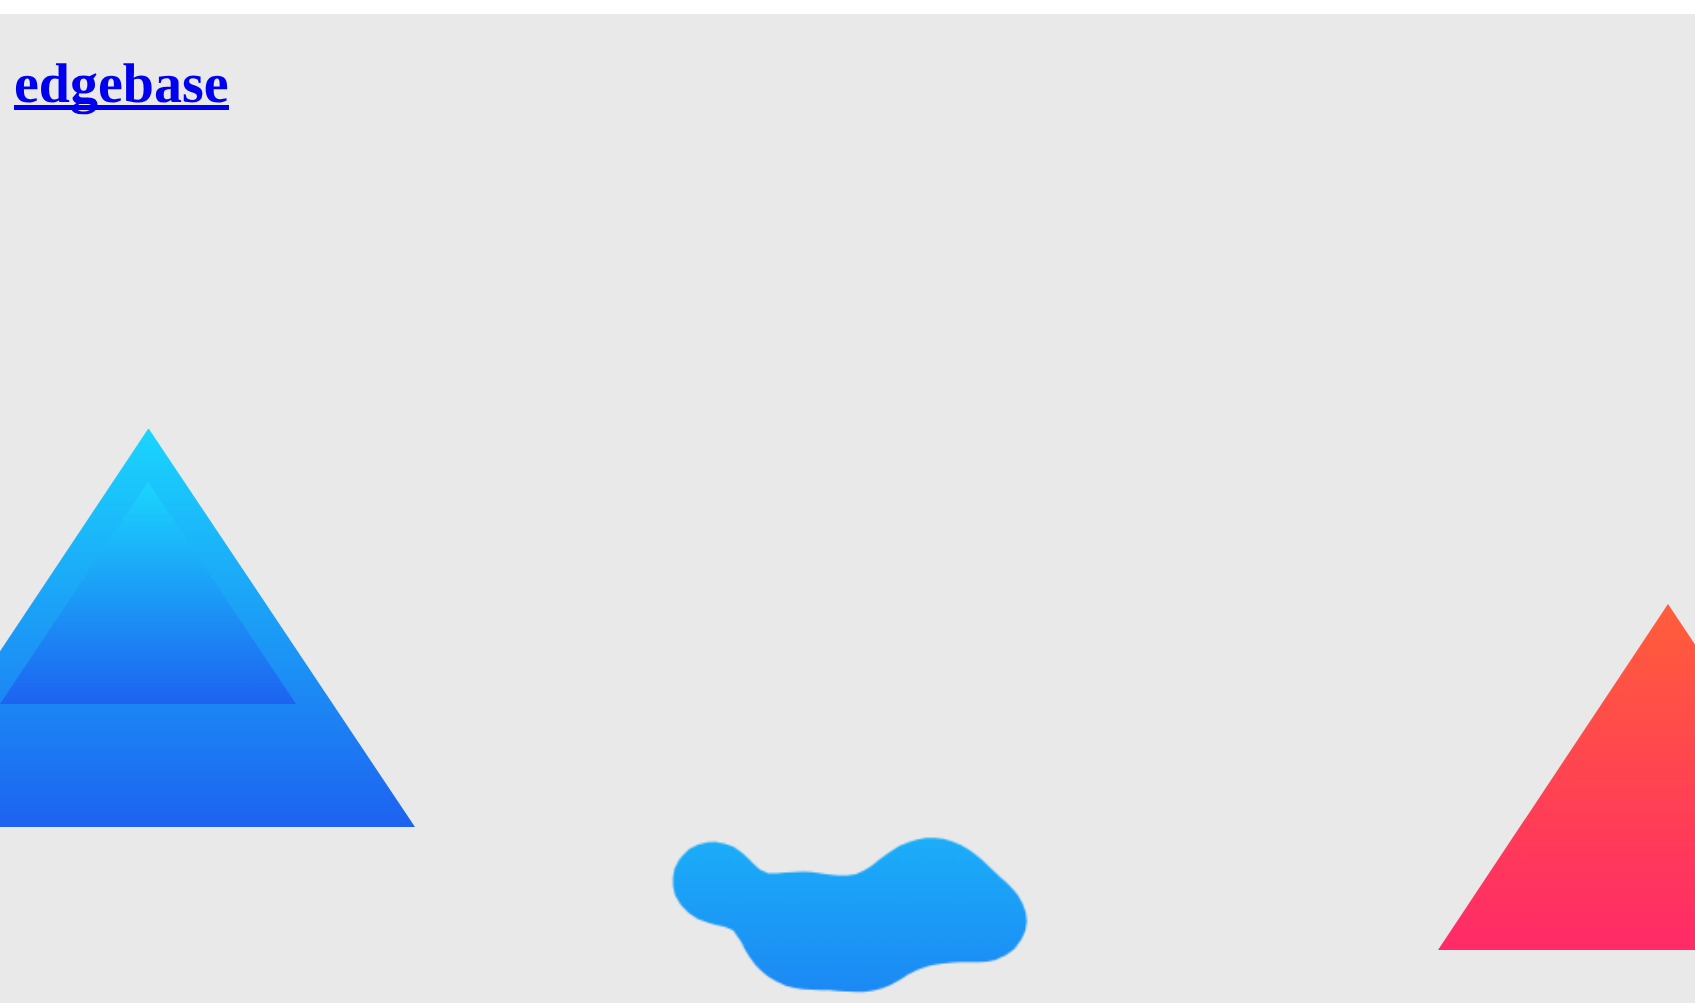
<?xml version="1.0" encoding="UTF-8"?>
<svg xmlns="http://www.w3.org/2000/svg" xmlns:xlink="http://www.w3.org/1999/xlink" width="1695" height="1003">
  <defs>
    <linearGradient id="g1" gradientUnits="userSpaceOnUse" x1="149" y1="428" x2="149" y2="827"><stop offset="0" stop-color="#1ad6fd" /><stop offset="1" stop-color="#1d62f0" /></linearGradient>
    <linearGradient id="g2" gradientUnits="userSpaceOnUse" x1="148" y1="482" x2="148" y2="704"><stop offset="0" stop-color="#1ad6fd" /><stop offset="1" stop-color="#1d62f0" /></linearGradient>
    <linearGradient id="g3" gradientUnits="userSpaceOnUse" x1="1668" y1="604" x2="1668" y2="951"><stop offset="0" stop-color="#ff5e3a" /><stop offset="1" stop-color="#ff2a68" /></linearGradient>
  </defs>
  <rect width="100%" height="100%" fill="#ffffff" />
  <rect y="14" width="1695" height="989" fill="#e9e9e9" />
  <path d="M 149 429 l 266 398 h -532 l 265 -398 z" fill="url(#g1)" />
  <path d="M 0 704 h 296 l -148 -222 z" fill="url(#g2)" />
  <image x="671" y="837" width="357" height="157" xlink:href="image1.png" />
  <path d="M 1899 950 l -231 -346 l -230 346 z" fill="url(#g3)" />
  <rect x="14" y="105" width="215" height="5" fill="#0000ee" />
  <text x="14" y="102" style="font-family: Liberation Serif; font-size: 56px; font-weight: bold; fill: #0000ee">edgebase</text>
</svg>
